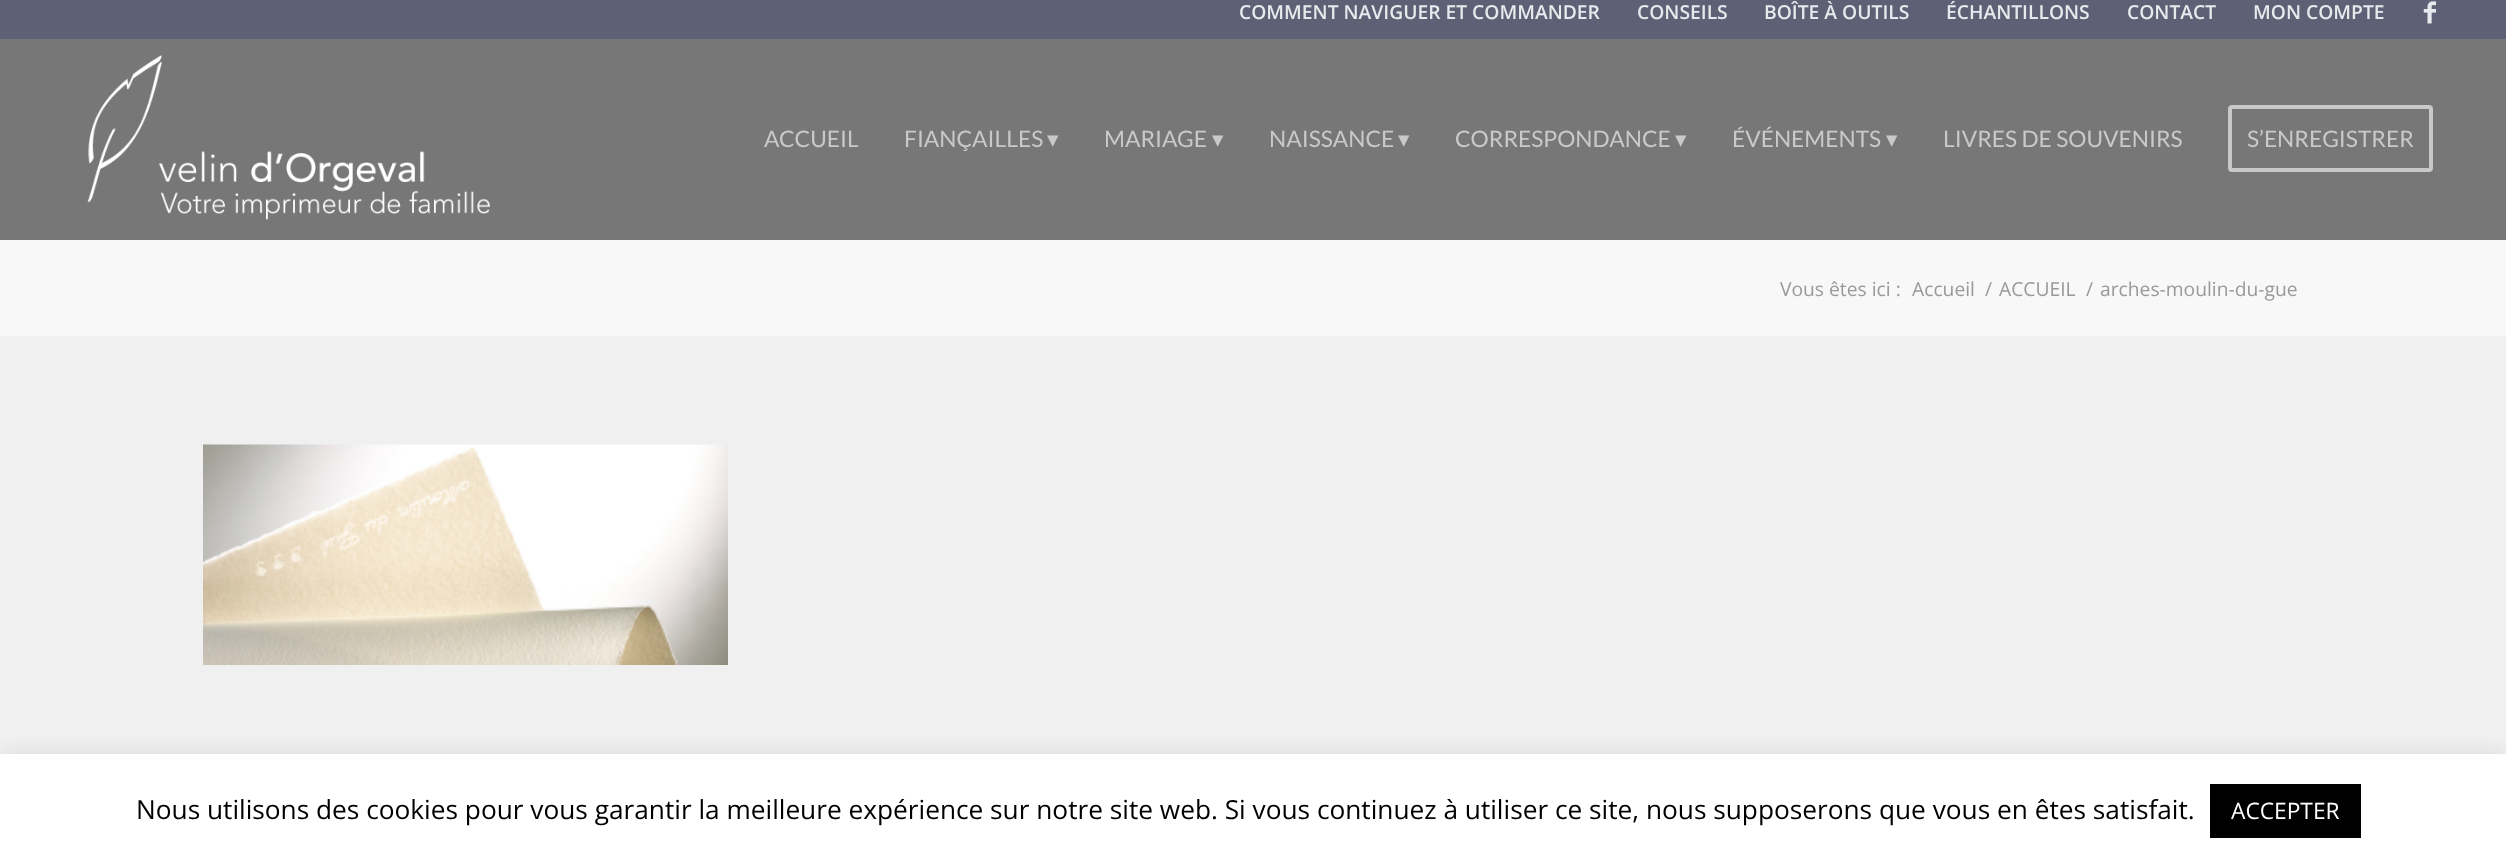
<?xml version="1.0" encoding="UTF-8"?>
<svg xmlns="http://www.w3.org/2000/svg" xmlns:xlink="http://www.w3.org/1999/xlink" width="2506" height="867">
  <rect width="100%" height="100%" fill="#f8f8f8" />
  <rect width="2506" height="39" fill="#5e6075" />
  <image x="2423" y="1" width="13" height="23" xlink:href="image1.png" />
  <rect y="39" width="2506" height="201" fill="#777777" />
  <image x="87" y="55" width="403" height="165" xlink:href="image2.png" />
  <rect x="2230" y="107" width="201" height="63" rx="2" fill="none" stroke="#c9c9c9" stroke-width="4" />
  <rect y="336" width="2506" height="418" fill="#f0f0f0" />
  <image x="203" y="444" width="525" height="221" xlink:href="image3.png" />
  <rect y="753" width="2506" height="113" fill="#acabab" fill-opacity="0.3" filter="blur(9px)" />
  <rect y="754" width="2506" height="113" fill="#ffffff" />
  <rect x="2210" y="784" width="151" height="54" fill="#000000" />
  <text x="1239" y="19" style="font-family: Open Sans; font-size: 19.25px; font-weight: 600; fill: #e7eaec">COMMENT NAVIGUER ET COMMANDER</text>
  <text x="1637" y="19" style="font-family: Open Sans; font-size: 19.25px; font-weight: 600; fill: #e7eaec">CONSEILS</text>
  <text x="1764" y="19" style="font-family: Open Sans; font-size: 19.25px; font-weight: 600; fill: #e7eaec">BOÎTE À OUTILS</text>
  <text x="1946" y="19" style="font-family: Open Sans; font-size: 19.25px; font-weight: 600; fill: #e7eaec">ÉCHANTILLONS</text>
  <text x="2127" y="19" style="font-family: Open Sans; font-size: 19.25px; font-weight: 600; fill: #e7eaec">CONTACT</text>
  <text x="2253" y="19" style="font-family: Open Sans; font-size: 19.25px; font-weight: 600; fill: #e7eaec">MON COMPTE</text>
  <text x="764" y="147" style="font-family: Lato; font-size: 22.75px; fill: #c9c9c9">ACCUEIL</text>
  <text x="904" y="147" style="font-family: Lato; font-size: 22.75px; fill: #c9c9c9">FIANÇAILLES</text>
  <text x="1047" y="147" style="font-family: DejaVu Sans; font-size: 22.75px; fill: #c9c9c9">▾</text>
  <text x="1104" y="147" style="font-family: Lato; font-size: 22.75px; fill: #c9c9c9">MARIAGE</text>
  <text x="1212" y="147" style="font-family: DejaVu Sans; font-size: 22.75px; fill: #c9c9c9">▾</text>
  <text x="1269" y="147" style="font-family: Lato; font-size: 22.75px; fill: #c9c9c9">NAISSANCE</text>
  <text x="1398" y="147" style="font-family: DejaVu Sans; font-size: 22.75px; fill: #c9c9c9">▾</text>
  <text x="1455" y="147" style="font-family: Lato; font-size: 22.75px; fill: #c9c9c9">CORRESPONDANCE</text>
  <text x="1675" y="147" style="font-family: DejaVu Sans; font-size: 22.75px; fill: #c9c9c9">▾</text>
  <text x="1732" y="147" style="font-family: Lato; font-size: 22.75px; fill: #c9c9c9">ÉVÉNEMENTS</text>
  <text x="1886" y="147" style="font-family: DejaVu Sans; font-size: 22.75px; fill: #c9c9c9">▾</text>
  <text x="1943" y="147" style="font-family: Lato; font-size: 22.75px; fill: #c9c9c9">LIVRES DE SOUVENIRS</text>
  <text x="2247" y="147" style="font-family: Lato; font-size: 22.75px; fill: #c9c9c9">S’ENREGISTRER</text>
  <text x="1780" y="296" style="font-family: Open Sans; font-size: 19.25px; fill: #999999">Vous êtes ici :</text>
  <text x="1912" y="296" style="font-family: Open Sans; font-size: 19.25px; fill: #999999">Accueil</text>
  <text x="1985" y="296" style="font-family: Open Sans; font-size: 19.25px; fill: #999999">/</text>
  <text x="1999" y="296" style="font-family: Open Sans; font-size: 19.25px; fill: #999999">ACCUEIL</text>
  <text x="2086" y="296" style="font-family: Open Sans; font-size: 19.25px; fill: #999999">/</text>
  <text x="2100" y="296" style="font-family: Open Sans; font-size: 19.25px; fill: #999999">arches-moulin-du-gue</text>
  <text x="136" y="819" style="font-family: Open Sans; font-size: 26.25px; fill: #000000">Nous utilisons des cookies pour vous garantir la meilleure expérience sur notre site web. Si vous continuez à utiliser ce site, nous supposerons que vous en êtes satisfait.</text>
  <text x="2231" y="819" style="font-family: Open Sans; font-size: 22.75px; fill: #ffffff">ACCEPTER</text>
</svg>
